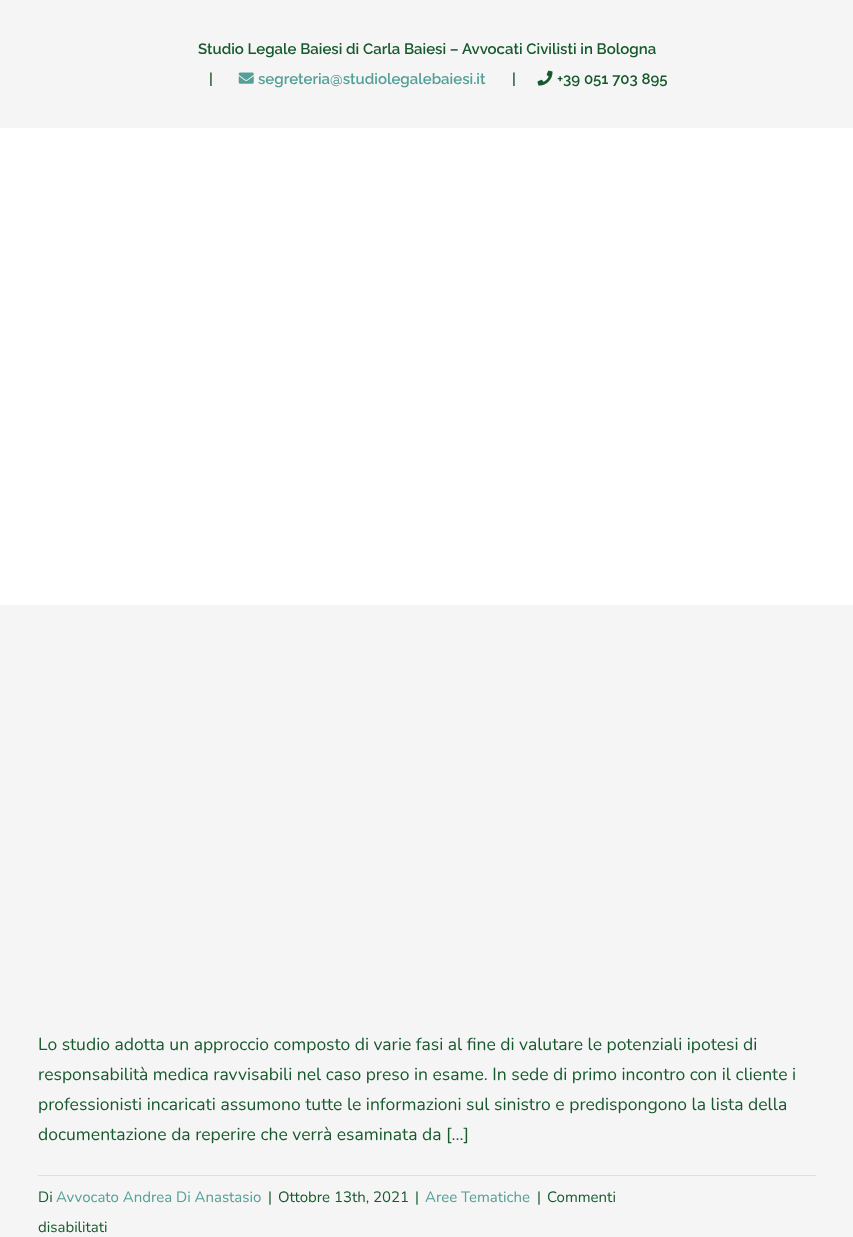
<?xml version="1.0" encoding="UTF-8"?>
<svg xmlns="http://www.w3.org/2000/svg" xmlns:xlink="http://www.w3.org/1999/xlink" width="853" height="1237">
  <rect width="100%" height="100%" fill="#f5f5f5" />
  <image x="238" y="72" width="16" height="12" xlink:href="image1.png" />
  <image x="537" y="70" width="16" height="16" xlink:href="image2.png" />
  <rect y="128" width="853" height="477" fill="#ffffff" />
  <rect x="38" y="1175" width="778" height="1" fill="#e0dede" />
  <text x="198" y="54" style="font-family: Raleway; font-size: 15px; font-weight: 600; fill: #16592c">Studio Legale Baiesi di Carla Baiesi – Avvocati Civilisti in Bologna</text>
  <text x="209" y="84" style="font-family: Raleway; font-size: 15px; font-weight: 600; fill: #16592c">|</text>
  <text x="258" y="84" style="font-family: Raleway; font-size: 15px; font-weight: 600; fill: #549f97">segreteria@studiolegalebaiesi.it</text>
  <text x="512" y="84" style="font-family: Raleway; font-size: 15px; font-weight: 600; fill: #16592c">|</text>
  <text x="557" y="84" style="font-family: Raleway; font-size: 15px; font-weight: 600; fill: #16592c">+39 051 703 895</text>
  <text x="38" y="1050" style="font-family: Nunito; font-size: 17.5px; fill: #16592c">Lo studio adotta un approccio composto di varie fasi al fine di valutare le potenziali ipotesi di</text>
  <text x="38" y="1080" style="font-family: Nunito; font-size: 17.5px; fill: #16592c">responsabilità medica ravvisabili nel caso preso in esame. In sede di primo incontro con il cliente i</text>
  <text x="38" y="1110" style="font-family: Nunito; font-size: 17.5px; fill: #16592c">professionisti incaricati assumono tutte le informazioni sul sinistro e predispongono la lista della</text>
  <text x="38" y="1140" style="font-family: Nunito; font-size: 17.5px; fill: #16592c">documentazione da reperire che verrà esaminata da [...]</text>
  <text x="38" y="1202" style="font-family: Nunito; font-size: 15px; fill: #16592c">Di</text>
  <text x="56" y="1202" style="font-family: Nunito; font-size: 15px; fill: #549f97">Avvocato Andrea Di Anastasio</text>
  <text x="268" y="1202" style="font-family: Nunito; font-size: 15px; fill: #16592c">|</text>
  <text x="278" y="1202" style="font-family: Nunito; font-size: 15px; fill: #16592c">Ottobre 13th, 2021</text>
  <text x="415" y="1202" style="font-family: Nunito; font-size: 15px; fill: #16592c">|</text>
  <text x="425" y="1202" style="font-family: Nunito; font-size: 15px; fill: #549f97">Aree Tematiche</text>
  <text x="537" y="1202" style="font-family: Nunito; font-size: 15px; fill: #16592c">|</text>
  <text x="547" y="1202" style="font-family: Nunito; font-size: 15px; fill: #16592c">Commenti</text>
  <text x="38" y="1232" style="font-family: Nunito; font-size: 15px; fill: #16592c">disabilitati</text>
</svg>
